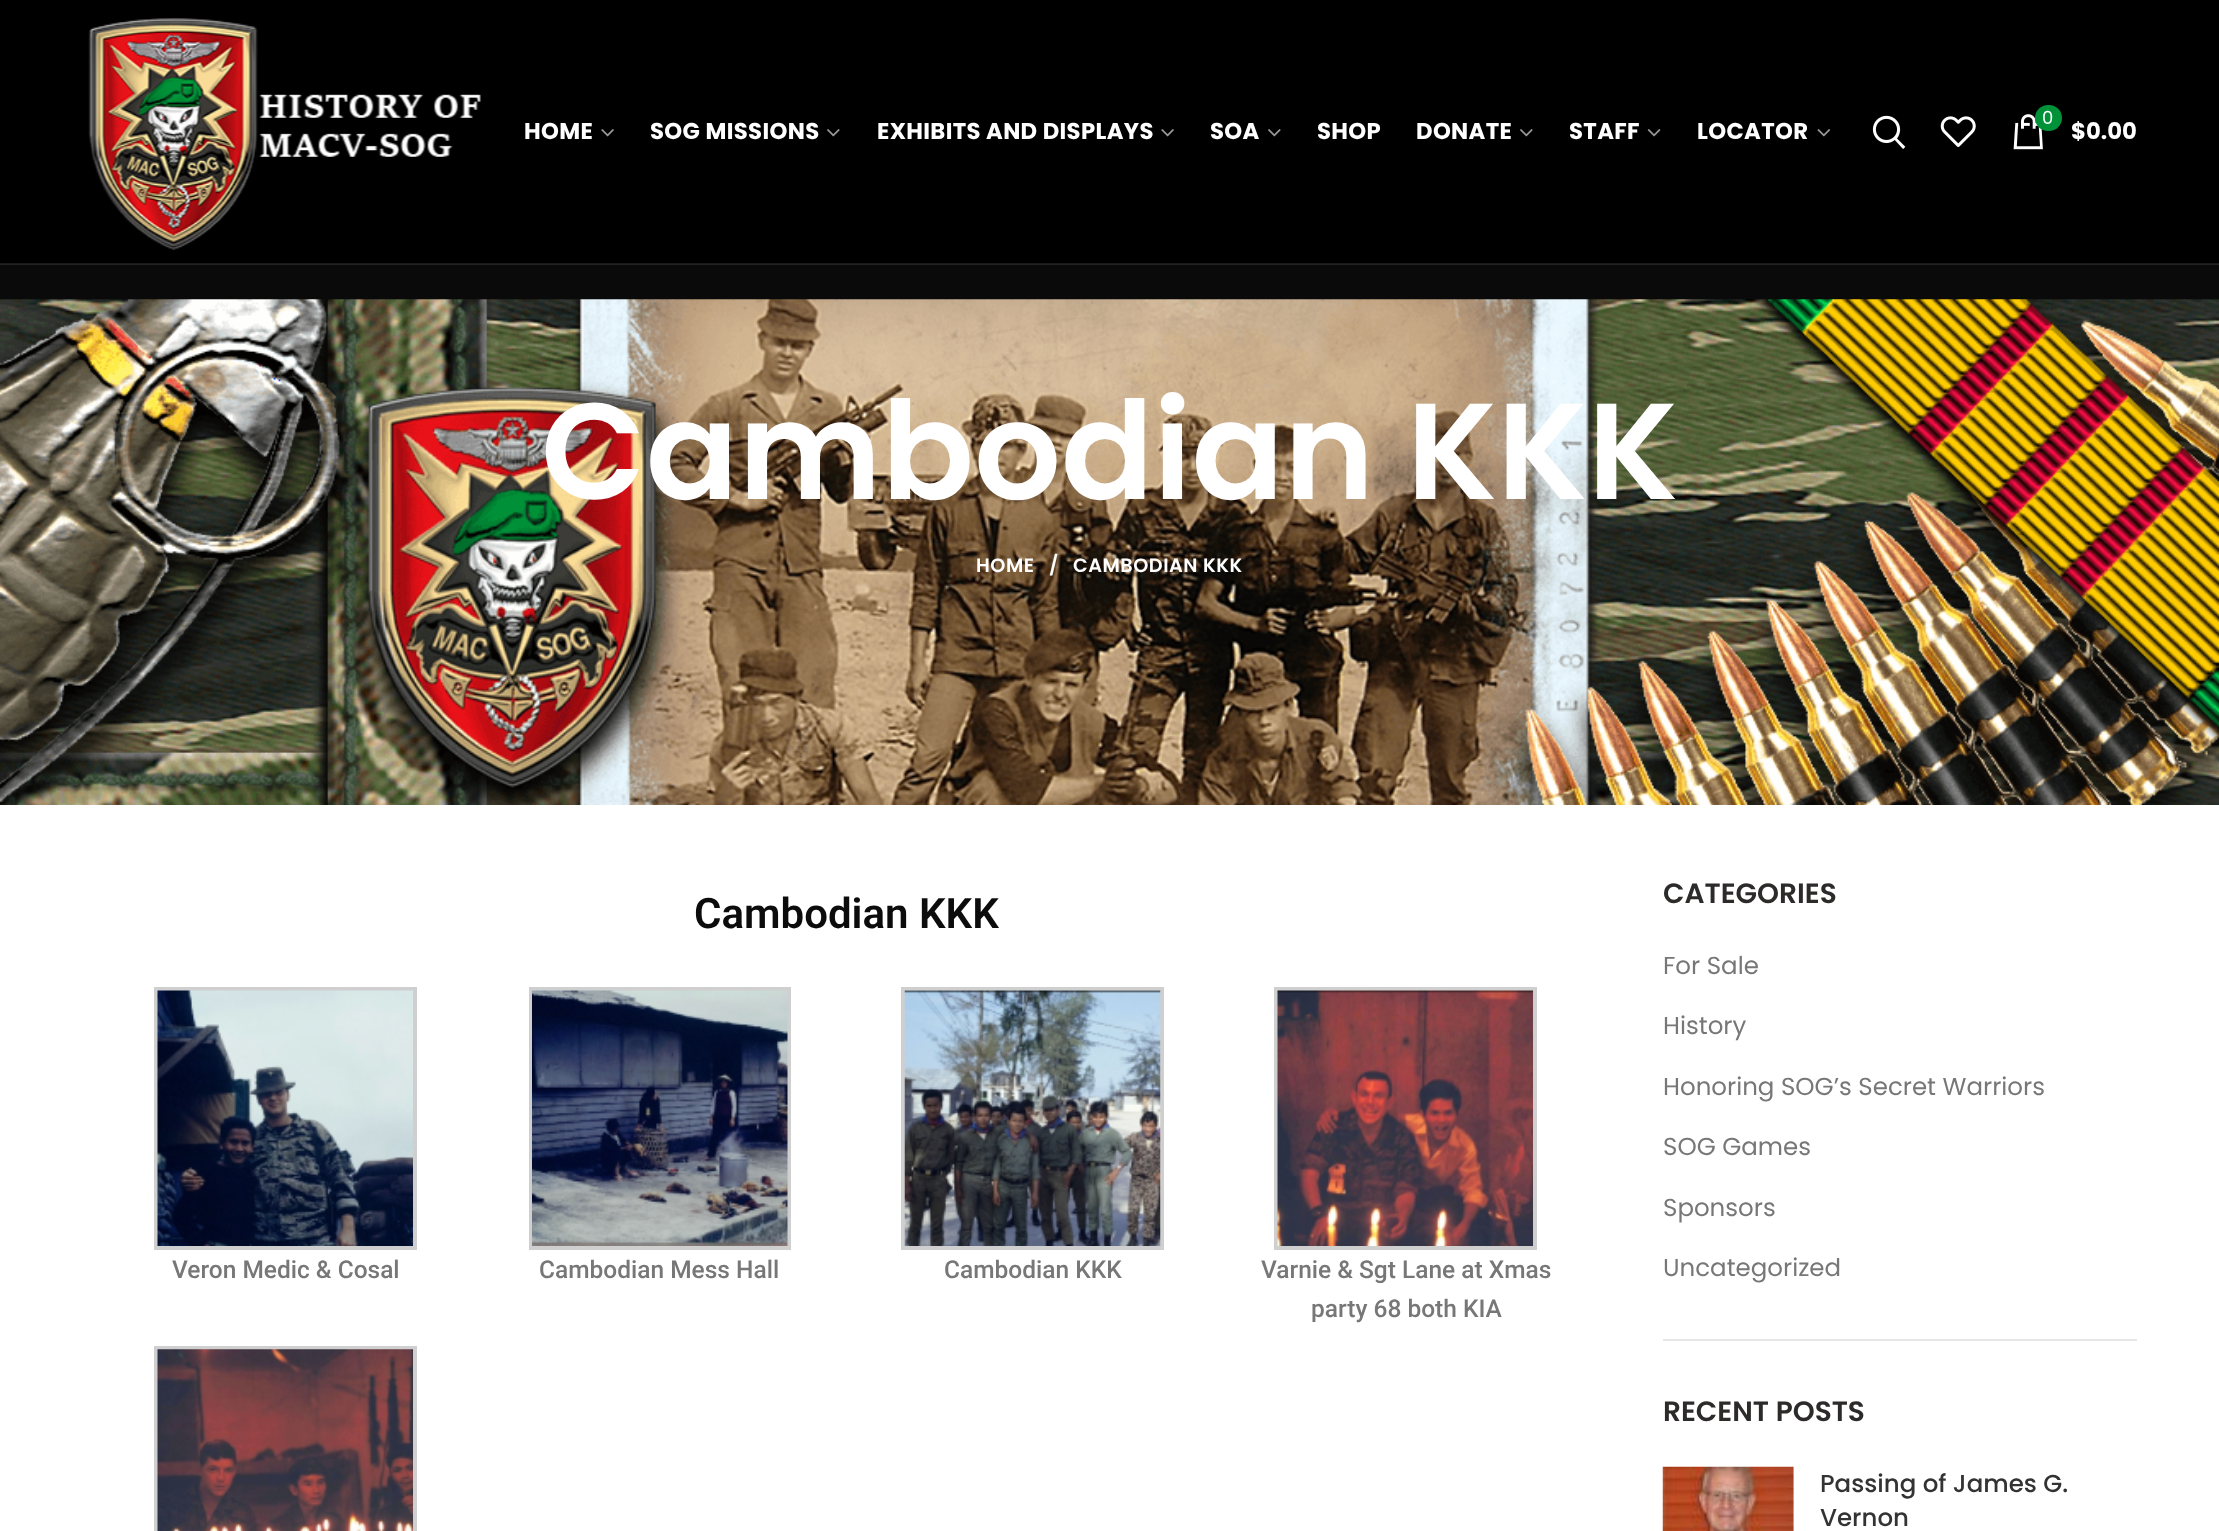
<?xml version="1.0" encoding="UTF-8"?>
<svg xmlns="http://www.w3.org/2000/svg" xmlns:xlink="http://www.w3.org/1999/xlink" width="2219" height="1531">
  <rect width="100%" height="100%" fill="#ffffff" />
  <rect width="2219" height="263" fill="#000000" />
  <rect y="263" width="2219" height="1" fill="#1a1a1a" />
  <image x="88" y="18" width="393" height="232" xlink:href="image1.png" />
  <image x="601" y="129" width="13" height="8" xlink:href="image2.png" />
  <image x="827" y="129" width="13" height="8" xlink:href="image3.png" />
  <image x="1161" y="129" width="13" height="8" xlink:href="image2.png" />
  <image x="1268" y="129" width="13" height="8" xlink:href="image3.png" />
  <image x="1520" y="129" width="13" height="8" xlink:href="image3.png" />
  <image x="1647" y="129" width="14" height="8" xlink:href="image4.png" />
  <image x="1817" y="129" width="14" height="8" xlink:href="image5.png" />
  <image x="1872" y="115" width="34" height="34" xlink:href="image6.png" />
  <image x="1940" y="116" width="36" height="31" xlink:href="image7.png" />
  <image x="2013" y="114" width="30" height="36" xlink:href="image8.png" />
  <rect x="2035" y="105" width="27" height="26" rx="13" fill="#009239" />
  <rect y="265" width="2219" height="35" fill="#0a0a0a" />
  <rect y="264" width="2219" height="1" fill="#222222" />
  <image x="0" y="299" width="2219" height="506" xlink:href="image9.png" />
  <rect x="156" y="989" width="259" height="259" fill="none" stroke="#cfcfcf" stroke-width="4" />
  <image x="157" y="990" width="256" height="256" xlink:href="image10.png" />
  <rect x="531" y="989" width="258" height="259" fill="none" stroke="#cfcfcf" stroke-width="4" />
  <image x="532" y="990" width="256" height="256" xlink:href="image11.png" />
  <rect x="903" y="989" width="259" height="259" fill="none" stroke="#cfcfcf" stroke-width="4" />
  <image x="904" y="990" width="257" height="256" xlink:href="image12.png" />
  <rect x="1276" y="989" width="259" height="259" fill="none" stroke="#cfcfcf" stroke-width="4" />
  <image x="1277" y="990" width="256" height="256" xlink:href="image13.png" />
  <rect x="156" y="1348" width="259" height="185" fill="none" stroke="#cfcfcf" stroke-width="4" />
  <image x="157" y="1349" width="256" height="182" xlink:href="image14.png" />
  <rect x="1663" y="1339" width="474" height="2" fill="#e6e6e6" />
  <image x="1662" y="1466" width="132" height="65" xlink:href="image15.png" />
  <text x="524" y="139" style="font-family: Poppins; font-size: 22.75px; font-weight: bold; letter-spacing: 0.35px; fill: #ffffff">HOME</text>
  <text x="650" y="139" style="font-family: Poppins; font-size: 22.75px; font-weight: bold; letter-spacing: 0.35px; fill: #ffffff">SOG MISSIONS</text>
  <text x="877" y="139" style="font-family: Poppins; font-size: 22.75px; font-weight: bold; letter-spacing: 0.35px; fill: #ffffff">EXHIBITS AND DISPLAYS</text>
  <text x="1210" y="139" style="font-family: Poppins; font-size: 22.75px; font-weight: bold; letter-spacing: 0.35px; fill: #ffffff">SOA</text>
  <text x="1317" y="139" style="font-family: Poppins; font-size: 22.75px; font-weight: bold; letter-spacing: 0.35px; fill: #ffffff">SHOP</text>
  <text x="1416" y="139" style="font-family: Poppins; font-size: 22.75px; font-weight: bold; letter-spacing: 0.35px; fill: #ffffff">DONATE</text>
  <text x="1569" y="139" style="font-family: Poppins; font-size: 22.75px; font-weight: bold; letter-spacing: 0.35px; fill: #ffffff">STAFF</text>
  <text x="1697" y="139" style="font-family: Poppins; font-size: 22.75px; font-weight: bold; letter-spacing: 0.35px; fill: #ffffff">LOCATOR</text>
  <text x="2042" y="124" style="font-family: Poppins; font-size: 18px; fill: #ffffff">0</text>
  <text x="2071" y="139" style="font-family: Poppins; font-size: 22.75px; font-weight: bold; fill: #ffffff">$0.00</text>
  <text x="541" y="499" style="font-family: Poppins; font-size: 136.5px; font-weight: 600; fill: #ffffff">Cambodian KKK</text>
  <text x="976" y="572" style="font-family: Poppins; font-size: 19.25px; font-weight: 600; letter-spacing: 0.5px; fill: #ffffff">HOME</text>
  <text x="1049" y="572" style="font-family: Poppins; font-size: 19.25px; font-weight: 600; letter-spacing: 0.5px; fill: #ffffff">/</text>
  <text x="1073" y="572" style="font-family: Poppins; font-size: 19.25px; font-weight: 600; letter-spacing: 0.5px; fill: #ffffff">CAMBODIAN KKK</text>
  <text x="694" y="928" style="font-family: Roboto; font-size: 42px; font-weight: 600; fill: #0c0c0c">Cambodian KKK</text>
  <text x="172" y="1278" style="font-family: Roboto; font-size: 24.5px; font-weight: 500; fill: #777777">Veron Medic &amp; Cosal</text>
  <text x="539" y="1278" style="font-family: Roboto; font-size: 24.5px; font-weight: 500; fill: #777777">Cambodian Mess Hall</text>
  <text x="944" y="1278" style="font-family: Roboto; font-size: 24.5px; font-weight: 500; fill: #777777">Cambodian KKK</text>
  <text x="1261" y="1278" style="font-family: Roboto; font-size: 24.5px; font-weight: 500; fill: #777777">Varnie &amp; Sgt Lane at Xmas</text>
  <text x="1311" y="1317" style="font-family: Roboto; font-size: 24.5px; font-weight: 500; fill: #777777">party 68 both KIA</text>
  <text x="1663" y="903" style="font-family: Poppins; font-size: 28px; font-weight: 600; fill: #2d2a2a">CATEGORIES</text>
  <text x="1663" y="974" style="font-family: Poppins; font-size: 24.5px; fill: #777777">For Sale</text>
  <text x="1663" y="1034" style="font-family: Poppins; font-size: 24.5px; fill: #777777">History</text>
  <text x="1663" y="1095" style="font-family: Poppins; font-size: 24.5px; fill: #777777">Honoring SOG’s Secret Warriors</text>
  <text x="1663" y="1155" style="font-family: Poppins; font-size: 24.5px; fill: #777777">SOG Games</text>
  <text x="1663" y="1216" style="font-family: Poppins; font-size: 24.5px; fill: #777777">Sponsors</text>
  <text x="1663" y="1276" style="font-family: Poppins; font-size: 24.5px; fill: #777777">Uncategorized</text>
  <text x="1663" y="1421" style="font-family: Poppins; font-size: 28px; font-weight: 600; fill: #2d2a2a">RECENT POSTS</text>
  <text x="1820" y="1492" style="font-family: Poppins; font-size: 24.5px; font-weight: 500; fill: #333333">Passing of James G.</text>
  <text x="1820" y="1526" style="font-family: Poppins; font-size: 24.5px; font-weight: 500; fill: #333333">Vernon</text>
</svg>
